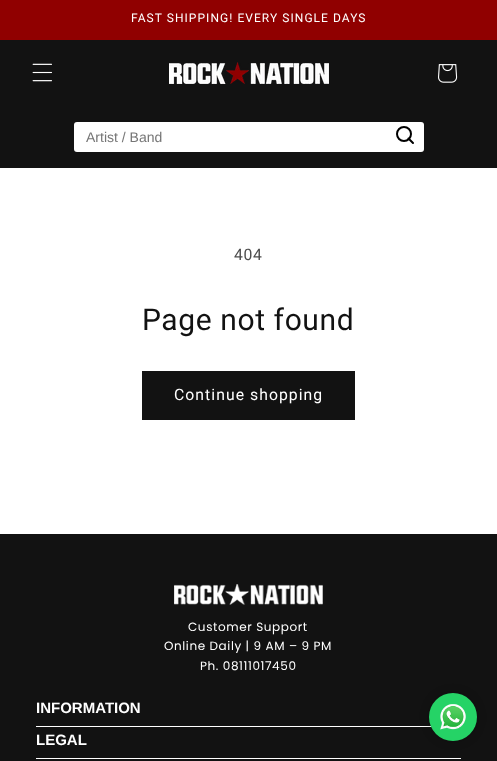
<?xml version="1.0" encoding="UTF-8"?>
<svg xmlns="http://www.w3.org/2000/svg" xmlns:xlink="http://www.w3.org/1999/xlink" width="497" height="761">
  <rect width="100%" height="100%" fill="#ffffff" />
  <rect width="497" height="40" fill="#900000" />
  <rect y="40" width="497" height="128" fill="#121212" />
  <image x="32" y="63" width="20" height="19" xlink:href="image1.png" />
  <image x="169" y="62" width="160" height="22" xlink:href="image2.png" />
  <image x="438" y="64" width="20" height="19" xlink:href="image3.png" />
  <rect x="74" y="122" width="350" height="30" rx="3" fill="#ffffff" />
  <circle cx="404" cy="134" r="7" fill="none" stroke="#000000" stroke-width="2" />
  <path d="M 408.5 138.5 l 4.5 4.5" fill="none" stroke="#000000" stroke-width="2" stroke-linecap="round" />
  <rect x="142" y="371" width="213" height="49" fill="#121212" />
  <rect y="534" width="497" height="227" fill="#121212" />
  <image x="174" y="584" width="149" height="21" xlink:href="image4.png" />
  <rect x="36" y="726" width="396" height="1" fill="#ffffff" />
  <rect x="36" y="758" width="425" height="1" fill="#ffffff" />
  <rect x="429" y="693" width="48" height="48" rx="24" fill="#000000" fill-opacity="0.2" filter="blur(5px)" />
  <circle cx="453" cy="717" r="24" fill="#25d366" />
  <image x="440" y="704" width="26" height="26" xlink:href="image5.png" />
  <text x="131" y="22" style="font-family: Roboto; font-size: 12px; letter-spacing: 1.05px; fill: #ffffff">FAST SHIPPING! EVERY SINGLE DAYS</text>
  <text x="86" y="142" style="font-family: Liberation Sans; font-size: 14px; fill: #757575">Artist / Band</text>
  <text x="234" y="260" style="font-family: Roboto; font-size: 15.75px; letter-spacing: 0.6px; fill: #4d4d4d">404</text>
  <text x="142" y="330" style="font-family: Roboto; font-size: 30px; letter-spacing: 0.6px; fill: #121212">Page not found</text>
  <text x="174" y="400" style="font-family: Roboto; font-size: 15.75px; letter-spacing: 1.05px; fill: #ffffff">Continue shopping</text>
  <text x="188" y="631" style="font-family: Poppins; font-size: 12px; letter-spacing: 0.6px; fill: #ffffff">Customer Support</text>
  <text x="164" y="650" style="font-family: Poppins; font-size: 12px; letter-spacing: 0.6px; fill: #ffffff">Online Daily | 9 AM – 9 PM</text>
  <text x="200" y="670" style="font-family: Poppins; font-size: 12px; letter-spacing: 0.6px; fill: #ffffff">Ph. 08111017450</text>
  <text x="36" y="713" style="font-family: Liberation Sans; font-size: 15px; font-weight: bold; fill: #ffffff">INFORMATION</text>
  <text x="36" y="745" style="font-family: Liberation Sans; font-size: 15px; font-weight: bold; fill: #ffffff">LEGAL</text>
</svg>
